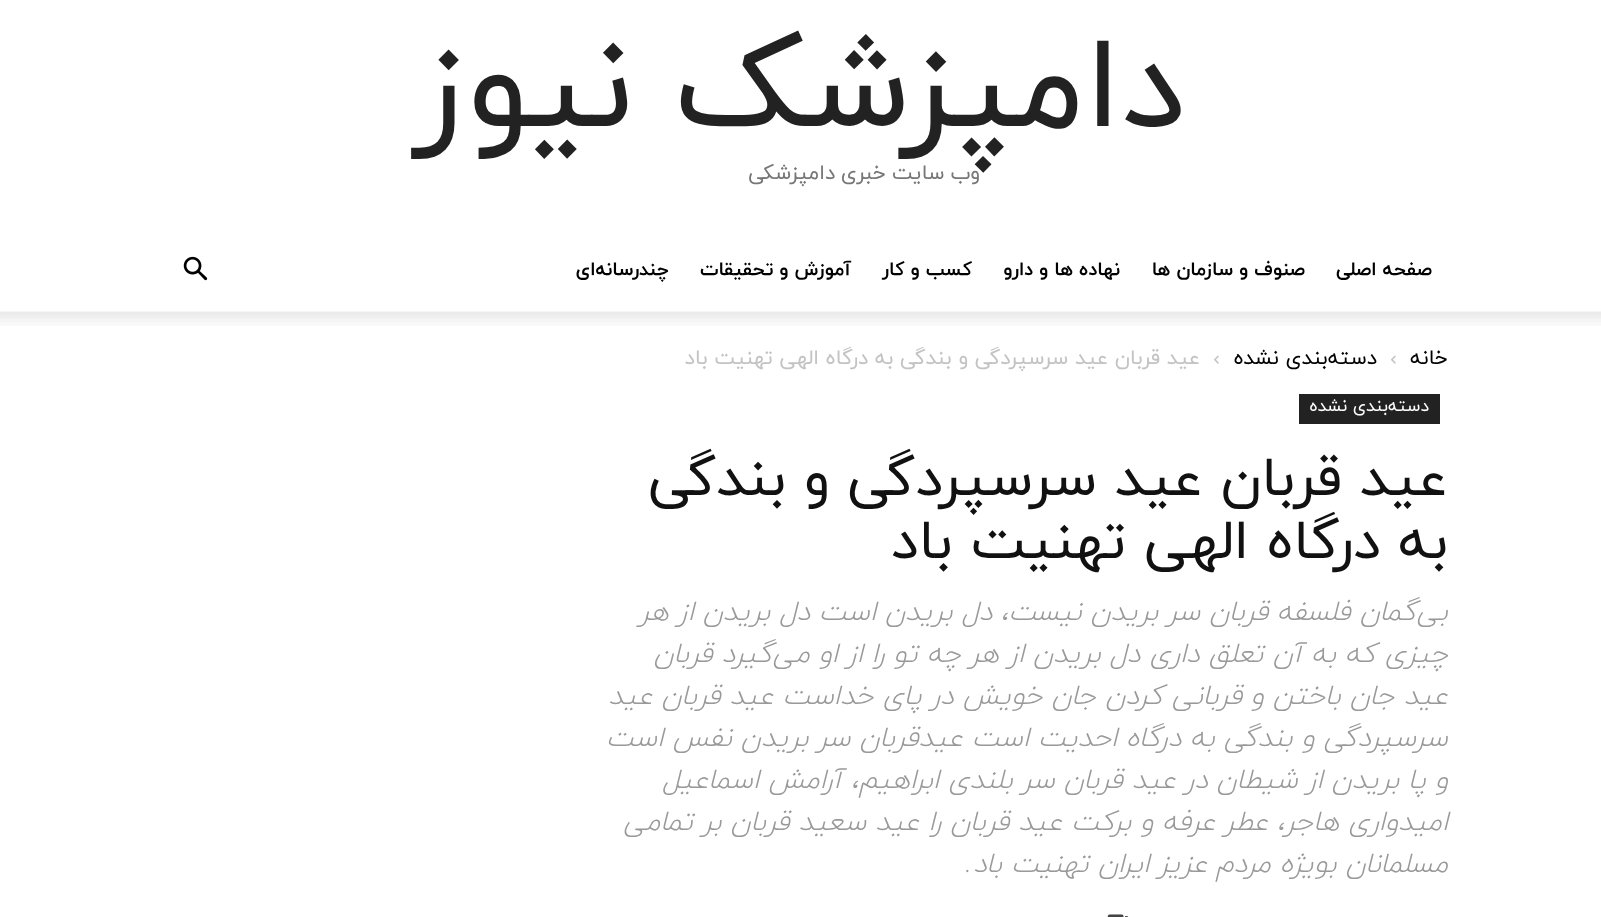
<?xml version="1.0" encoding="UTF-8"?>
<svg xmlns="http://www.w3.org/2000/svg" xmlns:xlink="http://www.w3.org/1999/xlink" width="1601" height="917">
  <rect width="100%" height="100%" fill="#ffffff" />
  <image x="183" y="256" width="25" height="25" xlink:href="image1.png" />
  <image x="0" y="311" width="1601" height="15" xlink:href="image2.png" />
  <image x="1391" y="355" width="5" height="9" xlink:href="image3.png" />
  <image x="1214" y="355" width="5" height="9" xlink:href="image4.png" />
  <rect x="1299" y="394" width="141" height="30" fill="#222222" />
  <image x="1107" y="914" width="22" height="3" xlink:href="image5.png" />
  <text x="980" y="179" word-spacing="-1" style="font-family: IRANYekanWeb; font-size: 21px; letter-spacing: 3.15px; direction: rtl; fill: #777777">وب سایت خبری دامپزشکی</text>
  <text x="1185" y="126" style="font-family: IRANYekanWeb; font-size: 131.25px; direction: rtl; fill: #222222">دامپزشک نیوز</text>
  <text x="1432" y="275" style="font-family: IRANYekanWeb; font-size: 19.25px; font-weight: bold; direction: rtl; fill: #000000">صفحه اصلی</text>
  <text x="1305" y="275" style="font-family: IRANYekanWeb; font-size: 19.25px; font-weight: bold; direction: rtl; fill: #000000">صنوف و سازمان ها</text>
  <text x="1120" y="275" style="font-family: IRANYekanWeb; font-size: 19.25px; font-weight: bold; direction: rtl; fill: #000000">نهاده ها و دارو</text>
  <text x="972" y="275" style="font-family: IRANYekanWeb; font-size: 19.25px; font-weight: bold; direction: rtl; fill: #000000">کسب و کار</text>
  <text x="851" y="275" style="font-family: IRANYekanWeb; font-size: 19.25px; font-weight: bold; direction: rtl; fill: #000000">آموزش و تحقیقات</text>
  <text x="669" y="275" style="font-family: IRANYekanWeb; font-size: 19.25px; font-weight: bold; direction: rtl; fill: #000000">چندرسانه‌ای</text>
  <text x="1448" y="364" style="font-family: IRANYekanWeb; font-size: 21px; direction: rtl; fill: #000000">خانه</text>
  <text x="1377" y="364" style="font-family: IRANYekanWeb; font-size: 21px; direction: rtl; fill: #000000">دسته‌بندی نشده</text>
  <text x="1200" y="364" style="font-family: IRANYekanWeb; font-size: 21px; direction: rtl; fill: #c3c3c3">عید قربان عید سرسپردگی و بندگی به درگاه الهی تهنیت باد</text>
  <text x="1429" y="411" style="font-family: IRANYekanWeb; font-size: 17.5px; direction: rtl; fill: #ffffff">دسته‌بندی نشده</text>
  <text x="1448" y="495" style="font-family: IRANYekanWeb; font-size: 56px; direction: rtl; fill: #111111">عید قربان عید سرسپردگی و بندگی</text>
  <text x="1448" y="558" style="font-family: IRANYekanWeb; font-size: 56px; direction: rtl; fill: #111111">به درگاه الهی تهنیت باد</text>
  <text x="1448" y="620" style="font-family: IRANYekanWeb; font-size: 28px; font-weight: 300; font-style: italic; direction: rtl; fill: #999999">بی‌گمان فلسفه قربان سر بریدن نیست، دل بریدن است دل بریدن از هر</text>
  <text x="1448" y="662" style="font-family: IRANYekanWeb; font-size: 28px; font-weight: 300; font-style: italic; direction: rtl; fill: #999999">چیزی که به آن تعلق داری دل بریدن از هر چه تو را از او می‌گیرد قربان</text>
  <text x="1448" y="704" style="font-family: IRANYekanWeb; font-size: 28px; font-weight: 300; font-style: italic; direction: rtl; fill: #999999">عید جان باختن و قربانی کردن جان خویش در پای خداست عید قربان عید</text>
  <text x="1448" y="746" style="font-family: IRANYekanWeb; font-size: 28px; font-weight: 300; font-style: italic; direction: rtl; fill: #999999">سرسپردگی و بندگی به درگاه احدیت است عیدقربان سر بریدن نفس است</text>
  <text x="1448" y="788" style="font-family: IRANYekanWeb; font-size: 28px; font-weight: 300; font-style: italic; direction: rtl; fill: #999999">و پا بریدن از شیطان در عید قربان سر بلندی ابراهیم، آرامش اسماعیل</text>
  <text x="1448" y="830" style="font-family: IRANYekanWeb; font-size: 28px; font-weight: 300; font-style: italic; direction: rtl; fill: #999999">امیدواری هاجر، عطر عرفه و برکت عید قربان را عید سعید قربان بر تمامی</text>
  <text x="1448" y="872" style="font-family: IRANYekanWeb; font-size: 28px; font-weight: 300; font-style: italic; direction: rtl; fill: #999999">مسلمانان بویژه مردم عزیز ایران تهنیت باد</text>
  <text x="972" y="872" style="font-family: Roboto; font-size: 28px; font-weight: 300; font-style: italic; direction: rtl; fill: #999999">.</text>
</svg>
